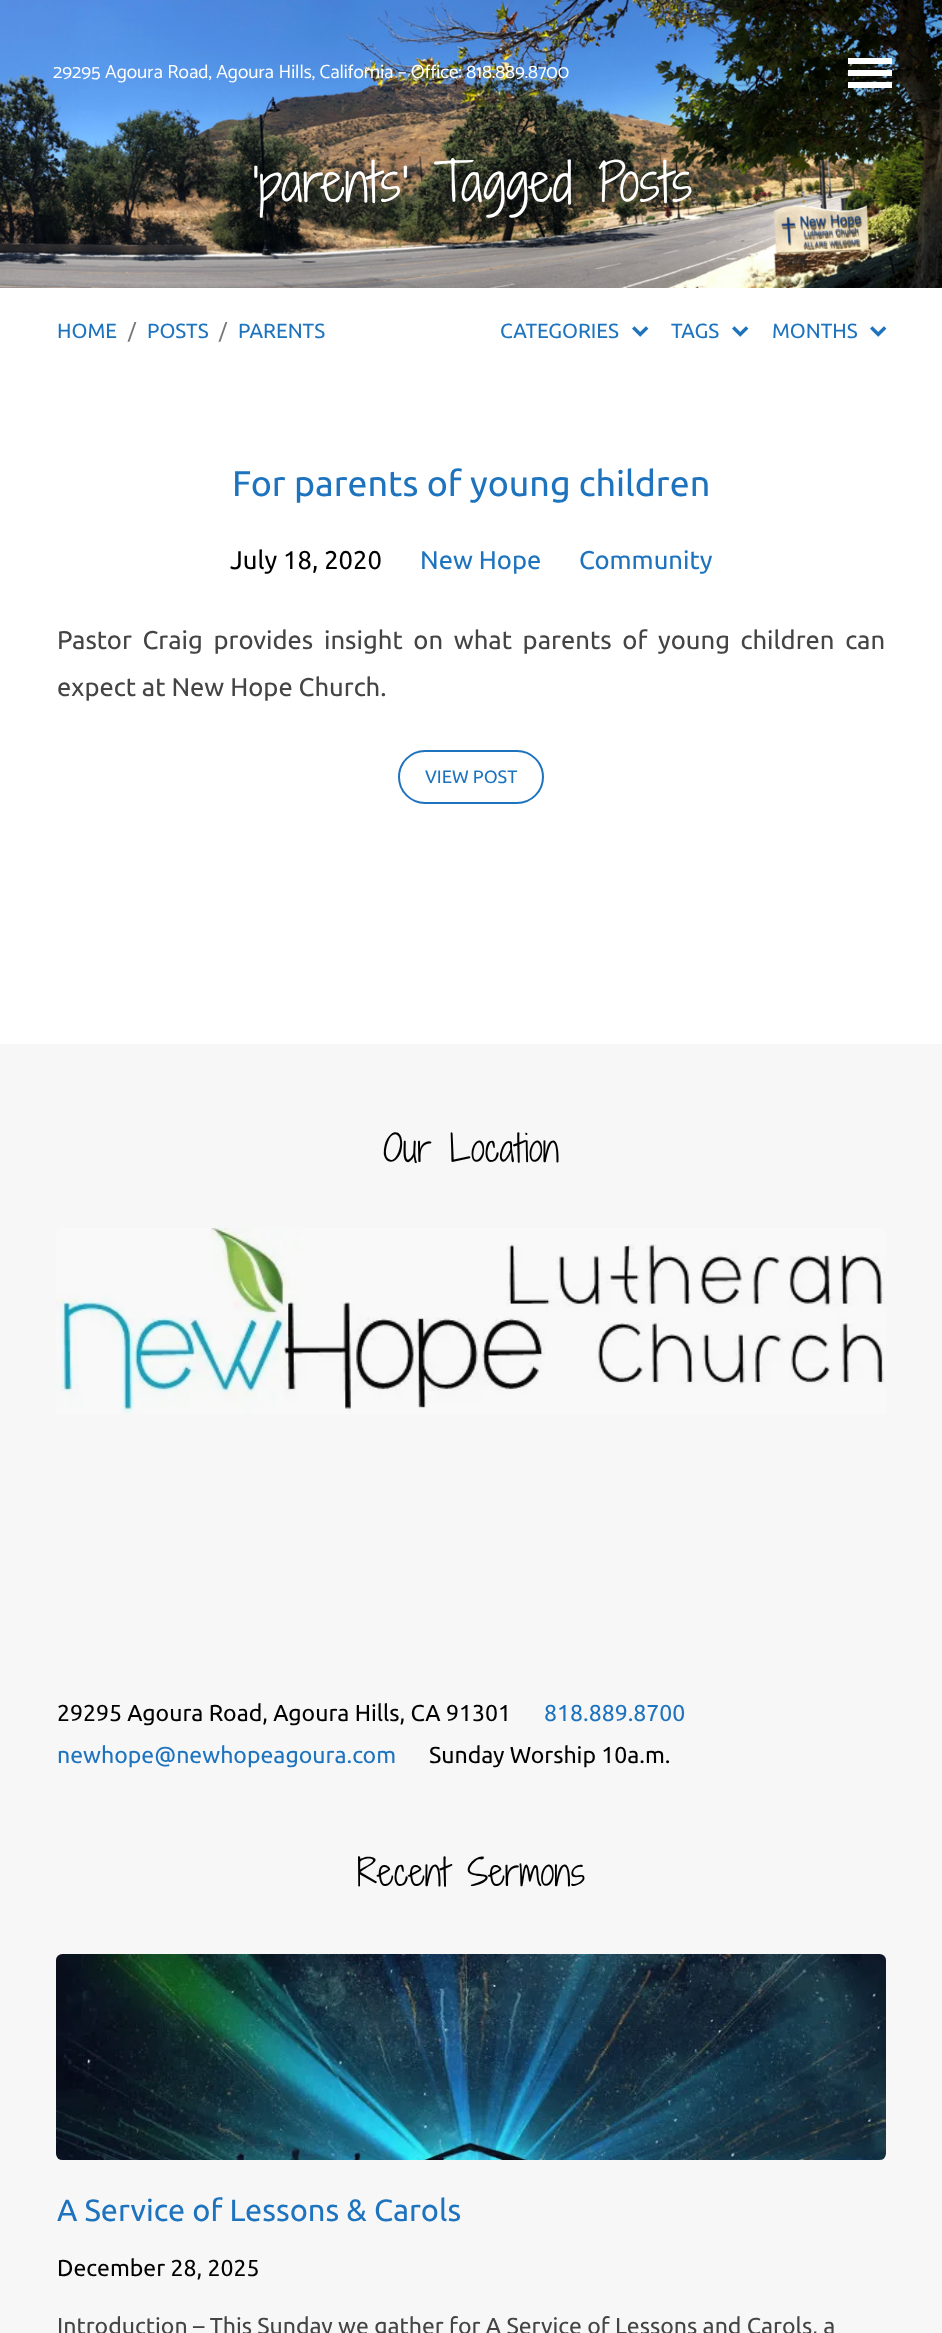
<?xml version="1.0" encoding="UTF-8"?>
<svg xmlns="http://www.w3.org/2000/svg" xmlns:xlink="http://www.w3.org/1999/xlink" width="942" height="2333">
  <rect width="100%" height="100%" fill="#ffffff" />
  <image x="0" y="0" width="942" height="288" xlink:href="image1.png" />
  <rect x="848" y="58" width="44" height="6" fill="#ffffff" />
  <rect x="848" y="70" width="44" height="6" fill="#ffffff" />
  <rect x="848" y="82" width="44" height="6" fill="#ffffff" />
  <image x="632" y="326" width="17" height="11" xlink:href="image2.png" />
  <image x="732" y="326" width="17" height="11" xlink:href="image2.png" />
  <image x="870" y="326" width="17" height="11" xlink:href="image2.png" />
  <rect x="399" y="751" width="144" height="52" rx="26" fill="none" stroke="#1e73be" stroke-width="2" />
  <rect y="1044" width="942" height="1289" fill="#f7f7f7" />
  <image x="56" y="1228" width="830" height="186" xlink:href="image3.png" />
  <image x="56" y="1954" width="830" height="206" xlink:href="image4.png" />
  <text x="53" y="78" style="font-family: Catamaran; font-size: 19.2px; fill: #ffffff">29295 Agoura Road, Agoura Hills, California – Office: 818.889.8700</text>
  <text x="251" y="202" style="font-family: Shadows Into Light Two; font-size: 51.25px; font-weight: 300; fill: #ffffff">'parents' Tagged Posts</text>
  <text x="57" y="338" style="font-family: Ubuntu; font-size: 20.5px; fill: #1e73be">HOME</text>
  <text x="128" y="338" style="font-family: Ubuntu; font-size: 20.5px; fill: #777777">/</text>
  <text x="147" y="338" style="font-family: Ubuntu; font-size: 20.5px; fill: #1e73be">POSTS</text>
  <text x="219" y="338" style="font-family: Ubuntu; font-size: 20.5px; fill: #777777">/</text>
  <text x="238" y="338" style="font-family: Ubuntu; font-size: 20.5px; fill: #1e73be">PARENTS</text>
  <text x="500" y="338" style="font-family: Ubuntu; font-size: 20.5px; fill: #1e73be">CATEGORIES</text>
  <text x="671" y="338" style="font-family: Ubuntu; font-size: 20.5px; fill: #1e73be">TAGS</text>
  <text x="772" y="338" style="font-family: Ubuntu; font-size: 20.5px; fill: #1e73be">MONTHS</text>
  <text x="232" y="496" style="font-family: Ubuntu; font-size: 35.8px; fill: #1e73be">For parents of young children</text>
  <text x="230" y="569" style="font-family: Ubuntu; font-size: 25.6px; fill: #000000">July 18, 2020</text>
  <text x="420" y="569" style="font-family: Ubuntu; font-size: 25.6px; fill: #1e73be">New Hope</text>
  <text x="579" y="569" style="font-family: Ubuntu; font-size: 25.6px; fill: #1e73be">Community</text>
  <text x="57" y="649" word-spacing="4.75" style="font-family: Ubuntu; font-size: 25.6px; fill: #444444">Pastor Craig provides insight on what parents of young children can</text>
  <text x="57" y="696" style="font-family: Ubuntu; font-size: 25.6px; fill: #444444">expect at New Hope Church.</text>
  <text x="425" y="783" style="font-family: Ubuntu; font-size: 18px; fill: #1e73be">VIEW POST</text>
  <text x="383" y="1162" style="font-family: Shadows Into Light Two; font-size: 35.8px; font-weight: 300; fill: #000000">Our Location</text>
  <text x="57" y="1721" style="font-family: Ubuntu; font-size: 23.05px; fill: #000000">29295 Agoura Road, Agoura Hills, CA 91301</text>
  <text x="544" y="1721" style="font-family: Ubuntu; font-size: 23.05px; fill: #1e73be">818.889.8700</text>
  <text x="57" y="1763" style="font-family: Ubuntu; font-size: 23.05px; fill: #1e73be">newhope@newhopeagoura.com</text>
  <text x="429" y="1763" style="font-family: Ubuntu; font-size: 23.05px; fill: #000000">Sunday Worship 10a.m.</text>
  <text x="357" y="1886" style="font-family: Shadows Into Light Two; font-size: 35.8px; font-weight: 300; fill: #000000">Recent Sermons</text>
  <text x="57" y="2221" style="font-family: Ubuntu; font-size: 30.75px; fill: #1e73be">A Service of Lessons &amp; Carols</text>
  <text x="57" y="2276" style="font-family: Ubuntu; font-size: 23.05px; fill: #000000">December 28, 2025</text>
  <text x="57" y="2334" style="font-family: Ubuntu; font-size: 23.05px; fill: #444444">Introduction – This Sunday we gather for A Service of Lessons and Carols, a</text>
</svg>
